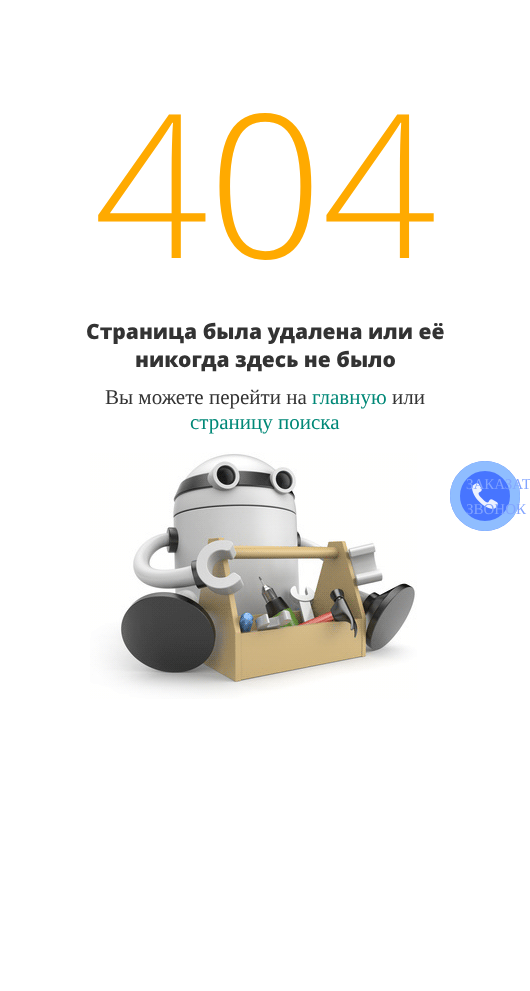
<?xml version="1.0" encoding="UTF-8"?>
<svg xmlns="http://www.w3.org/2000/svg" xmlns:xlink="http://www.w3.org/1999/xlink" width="530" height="991">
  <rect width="100%" height="100%" fill="#ffffff" />
  <image x="90" y="452" width="327" height="247" xlink:href="image1.png" />
  <circle cx="485" cy="496" r="35" fill="#4775ff" />
  <image x="472" y="483" width="26" height="26" xlink:href="image2.png" />
  <circle cx="485" cy="496" r="30" fill="none" stroke="#8fbdff" stroke-width="10" />
  <text x="94" y="258" style="font-family: Open Sans; font-size: 200px; font-weight: 300; fill: #ffaa00">404</text>
  <text x="86" y="339" style="font-family: Open Sans; font-size: 21px; font-weight: 800; fill: #333333">Страница была удалена или её</text>
  <text x="135" y="367" style="font-family: Open Sans; font-size: 21px; font-weight: 800; fill: #333333">никогда здесь не было</text>
  <text x="105" y="404" style="font-family: Liberation Serif; font-size: 21px; fill: #333333">Вы можете перейти на</text>
  <text x="312" y="404" style="font-family: Liberation Serif; font-size: 21px; fill: #008877">главную</text>
  <text x="392" y="404" style="font-family: Liberation Serif; font-size: 21px; fill: #333333">или</text>
  <text x="190" y="429" style="font-family: Liberation Serif; font-size: 21px; fill: #008877">страницу поиска</text>
  <text x="466" y="489" style="font-family: Liberation Serif; font-size: 15px; fill: #82a4ff">ЗАКАЗАТ</text>
  <text x="466" y="514" style="font-family: Liberation Serif; font-size: 15px; fill: #82a4ff">ЗВОНОК</text>
</svg>
